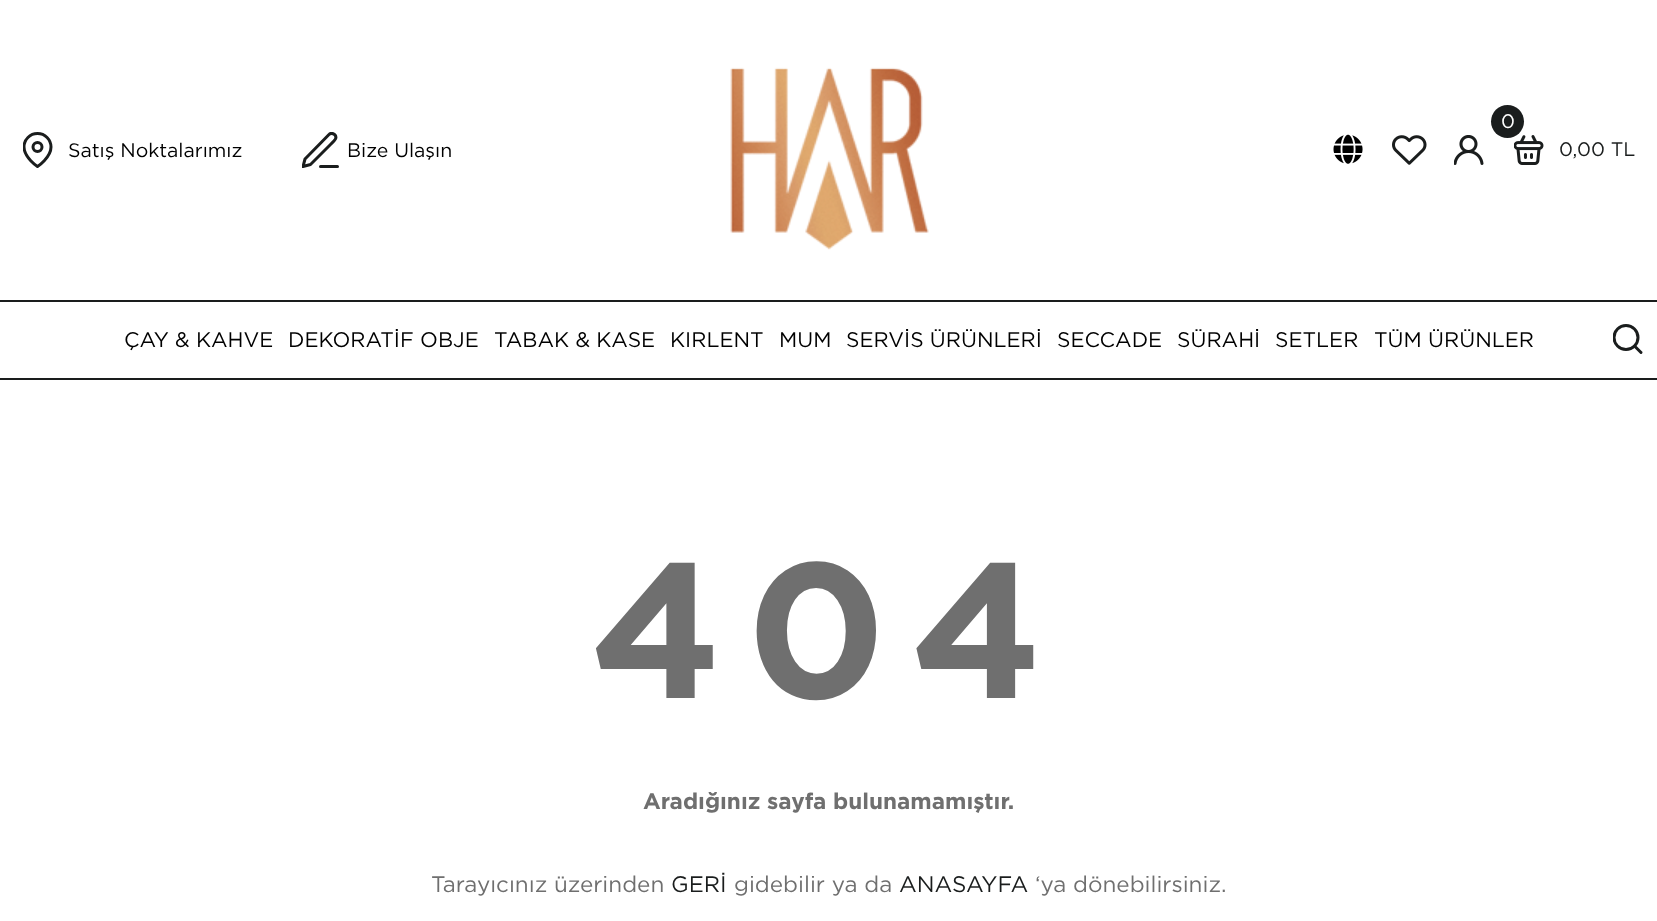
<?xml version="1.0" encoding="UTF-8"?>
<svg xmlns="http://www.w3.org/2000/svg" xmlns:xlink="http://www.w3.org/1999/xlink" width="1657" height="921">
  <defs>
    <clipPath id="clip1"><rect x="23" y="132" width="30" height="36" /></clipPath>
    <clipPath id="clip2"><rect x="302" y="132" width="37" height="36" /></clipPath>
    <clipPath id="clip3"><rect x="1613" y="324" width="30" height="32" /></clipPath>
  </defs>
  <rect width="100%" height="100%" fill="#ffffff" />
  <g clip-path="url(#clip1)">
    <path d="M 51 147 c 0 10.5 -13.5 19.5 -13.5 19.5 c 0 0 -13.5 -9 -13.5 -19.5 c 0 -7.5 6 -13.5 13.5 -13.5 c 7.5 0 13.5 6 13.5 13.5 z" fill="none" stroke="#1a1d1d" stroke-width="3" stroke-linecap="round" stroke-linejoin="round" />
  </g>
  <circle cx="37.5" cy="147" r="4.5" fill="none" stroke="#1a1d1d" stroke-width="3" />
  <path d="M 320.5 166.5 h 17" fill="none" stroke="#1a1d1d" stroke-width="3" stroke-linecap="round" stroke-linejoin="round" />
  <g clip-path="url(#clip2)">
    <path d="M 329 134.5 c 1.5 -1.5 3.5 -1.5 5.5 0 c 4 3.5 -1.5 7.5 -4 10 l -20 20 l -7.5 2 l 2 -7.5 z" fill="none" stroke="#1a1d1d" stroke-width="3" stroke-linecap="round" stroke-linejoin="round" />
  </g>
  <image x="730" y="67" width="199" height="183" xlink:href="image1.png" />
  <image x="1333" y="134" width="30" height="30" xlink:href="image2.png" />
  <image x="1392" y="135" width="35" height="30" xlink:href="image3.png" />
  <image x="1454" y="135" width="30" height="30" xlink:href="image4.png" />
  <image x="1514" y="135" width="30" height="30" xlink:href="image5.png" />
  <circle cx="1507.5" cy="121.5" r="16.5" fill="#1a1d1d" />
  <rect y="300" width="1657" height="2" fill="#1a1d1d" />
  <rect y="378" width="1657" height="2" fill="#1a1d1d" />
  <g clip-path="url(#clip3)">
    <circle cx="1626" cy="337.5" r="12" fill="none" stroke="#1a1d1d" stroke-width="3" />
  </g>
  <path d="M 1641 352.5 l -6.5 -6.5" fill="none" stroke="#1a1d1d" stroke-width="3" stroke-linecap="round" stroke-linejoin="round" />
  <text x="68" y="157" style="font-family: Gotham; font-size: 19.5px; fill: #000000">Satış Noktalarımız</text>
  <text x="347" y="157" style="font-family: Gotham; font-size: 19.5px; fill: #000000">Bize Ulaşın</text>
  <text x="1501" y="128" style="font-family: Gotham; font-size: 19.5px; fill: #ffffff">0</text>
  <text x="1559" y="156" style="font-family: Gotham; font-size: 19.5px; fill: #1a1d1d">0,00 TL</text>
  <text x="124" y="347" style="font-family: Gotham; font-size: 21px; fill: #000000">ÇAY &amp; KAHVE</text>
  <text x="288" y="347" style="font-family: Gotham; font-size: 21px; fill: #000000">DEKORATİF OBJE</text>
  <text x="494" y="347" style="font-family: Gotham; font-size: 21px; fill: #000000">TABAK &amp; KASE</text>
  <text x="670" y="347" style="font-family: Gotham; font-size: 21px; fill: #000000">KIRLENT</text>
  <text x="779" y="347" style="font-family: Gotham; font-size: 21px; fill: #000000">MUM</text>
  <text x="846" y="347" style="font-family: Gotham; font-size: 21px; fill: #000000">SERVİS ÜRÜNLERİ</text>
  <text x="1057" y="347" style="font-family: Gotham; font-size: 21px; fill: #000000">SECCADE</text>
  <text x="1177" y="347" style="font-family: Gotham; font-size: 21px; fill: #000000">SÜRAHİ</text>
  <text x="1275" y="347" style="font-family: Gotham; font-size: 21px; fill: #000000">SETLER</text>
  <text x="1374" y="347" style="font-family: Gotham; font-size: 21px; fill: #000000">TÜM ÜRÜNLER</text>
  <text x="590" y="698" style="font-family: Gotham; font-size: 192px; font-weight: bold; letter-spacing: 24px; fill: #6f6f6f">404</text>
  <text x="643" y="809" style="font-family: Gotham; font-size: 22.5px; font-weight: bold; fill: #6f6f6f">Aradığınız sayfa bulunamamıştır.</text>
  <text x="431" y="892" style="font-family: Gotham; font-size: 22.5px; fill: #6f6f6f">Tarayıcınız üzerinden</text>
  <text x="671" y="892" style="font-family: Gotham; font-size: 22.5px; fill: #1a1d1d">GERİ</text>
  <text x="734" y="892" style="font-family: Gotham; font-size: 22.5px; fill: #6f6f6f">gidebilir ya da</text>
  <text x="899" y="892" style="font-family: Gotham; font-size: 22.5px; fill: #1a1d1d">ANASAYFA</text>
  <text x="1035" y="892" style="font-family: Gotham; font-size: 22.5px; fill: #6f6f6f">‘ya dönebilirsiniz.</text>
</svg>
